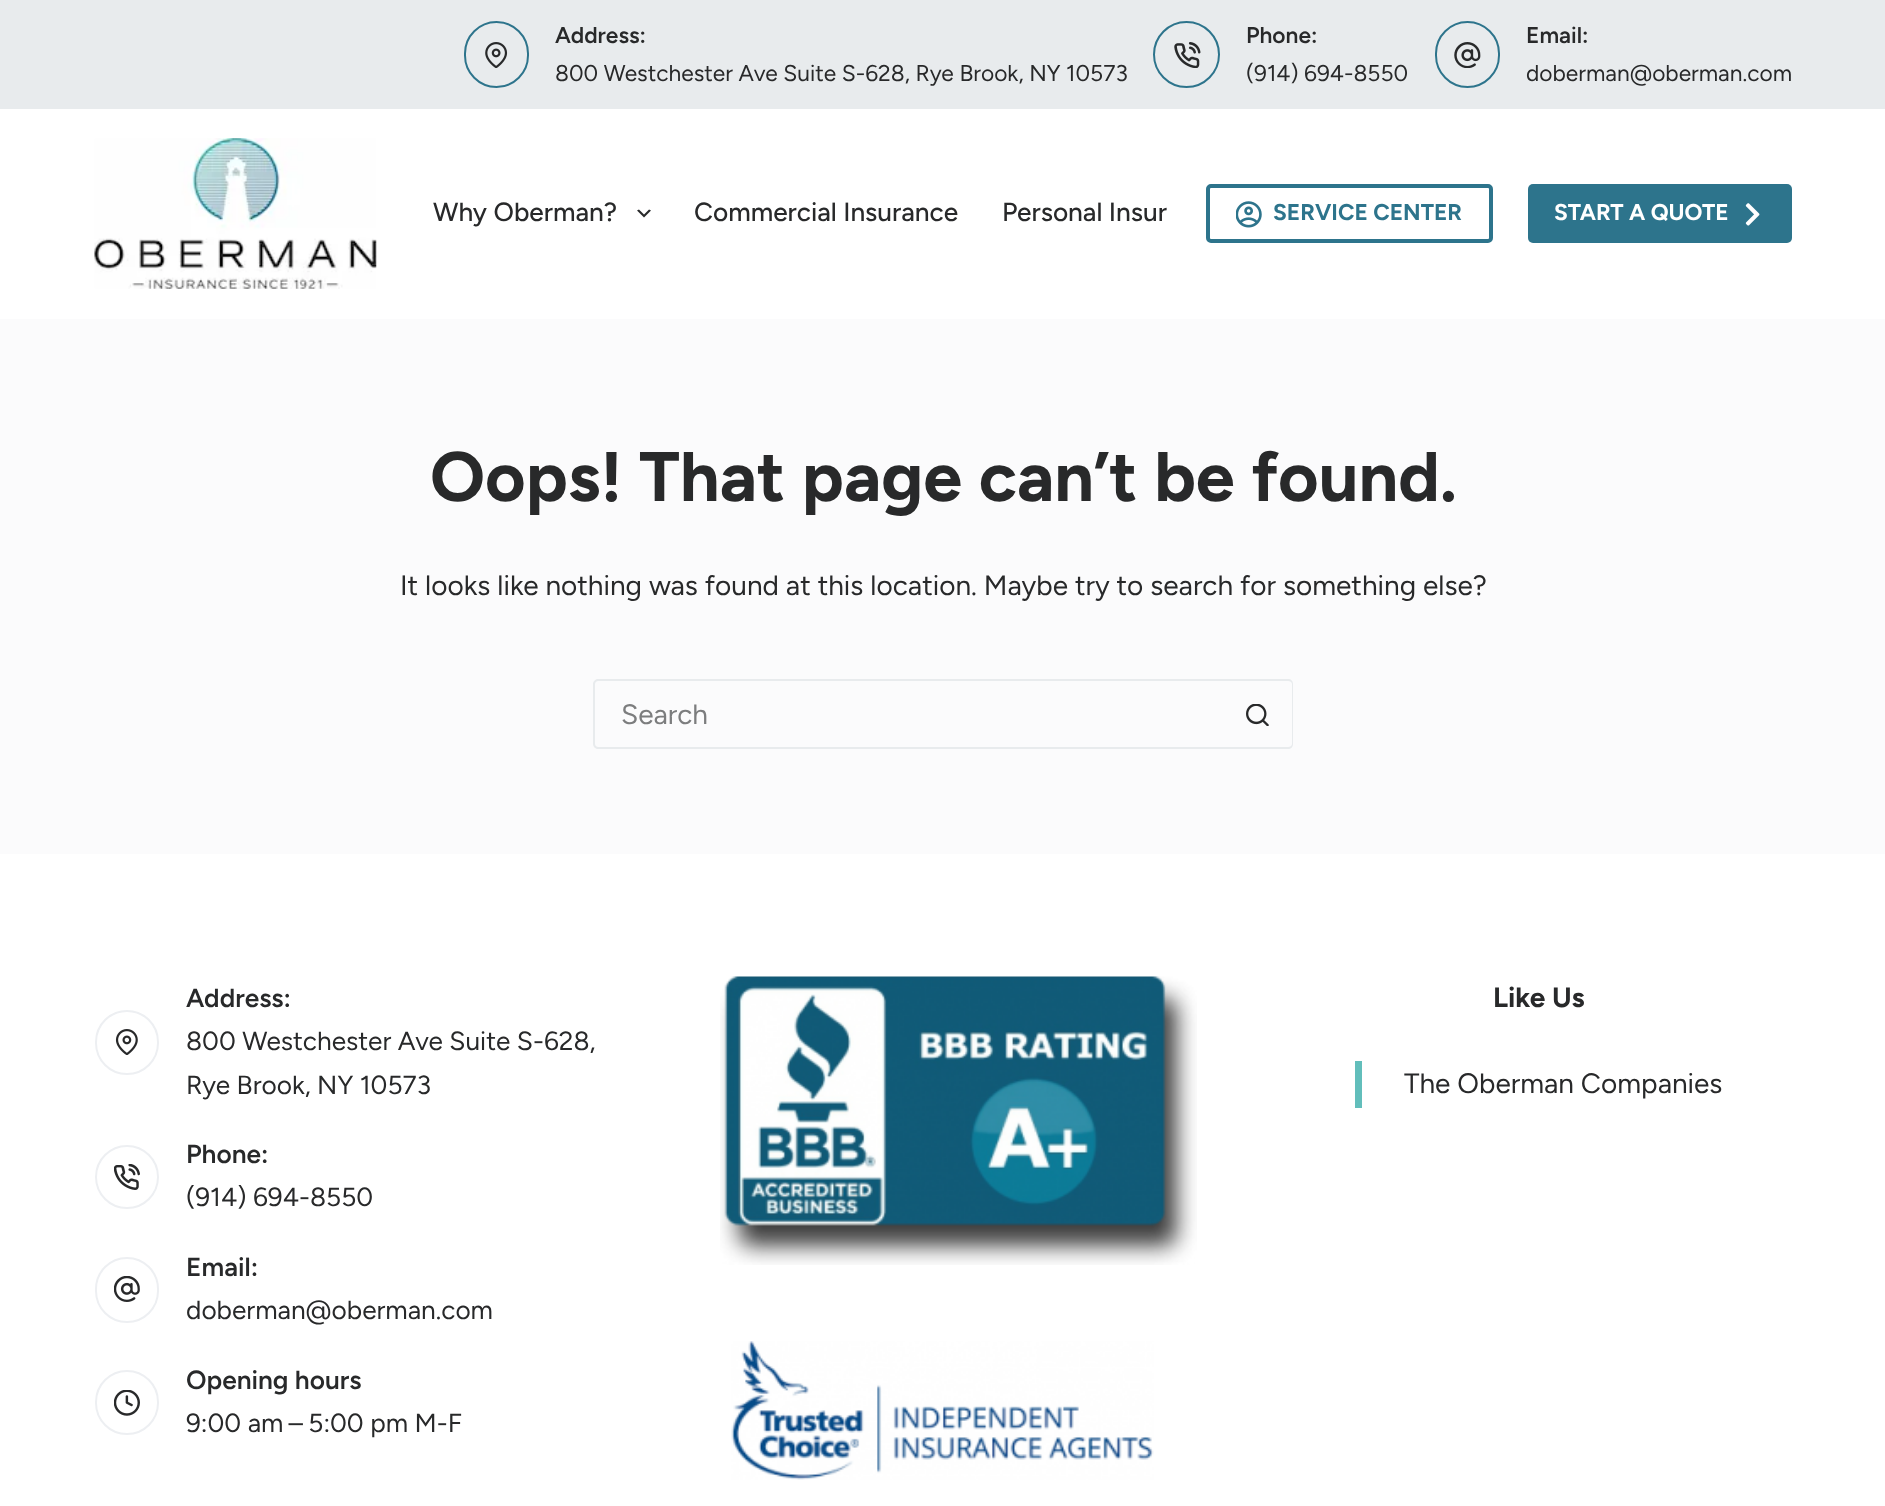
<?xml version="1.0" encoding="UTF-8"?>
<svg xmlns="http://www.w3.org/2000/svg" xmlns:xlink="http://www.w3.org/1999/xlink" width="1885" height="1506">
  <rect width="100%" height="100%" fill="#fbfbfc" />
  <rect width="1885" height="109" fill="#e8ebed" />
  <rect x="465" y="22" width="63" height="65" rx="31.5" fill="none" stroke="#2d748c" stroke-width="2" />
  <image x="485" y="42" width="23" height="26" xlink:href="image1.png" />
  <circle cx="1186.5" cy="54.5" r="32.5" fill="none" stroke="#2d748c" stroke-width="2" />
  <image x="1174" y="42" width="27" height="26" xlink:href="image2.png" />
  <rect x="1436" y="22" width="63" height="65" rx="31.5" fill="none" stroke="#2d748c" stroke-width="2" />
  <image x="1454" y="42" width="27" height="26" xlink:href="image3.png" />
  <rect y="109" width="1885" height="210" fill="#ffffff" />
  <image x="94" y="138" width="283" height="151" xlink:href="image4.png" />
  <image x="637" y="209" width="14" height="9" xlink:href="image5.png" />
  <rect x="1208" y="186" width="283" height="55" rx="3" fill="none" stroke="#2d748c" stroke-width="4" />
  <image x="1236" y="201" width="26" height="27" xlink:href="image6.png" />
  <rect x="1528" y="184" width="264" height="59" rx="5" fill="#2d748c" />
  <image x="1745" y="203" width="15" height="23" xlink:href="image7.png" />
  <path d="M 598 679 h 625 v 70 h -625 c -2 0 -5 -2 -5 -5 v -60 c 0 -3 3 -5 5 -5 z m 0 2 h 625 v 66 h -625 c -1 0 -3 -1 -3 -3 v -60 c 0 -2 2 -3 3 -3 z" fill="#e8ebed" fill-rule="evenodd" />
  <path d="M 1223 679 h 65 c 3 0 5 2 5 5 v 60 c 0 3 -2 5 -5 5 h -65 z m 0 2 h 65 c 2 0 4 1 4 3 v 60 c 0 2 -2 3 -4 3 h -65 z" fill="#e8ebed" fill-rule="evenodd" />
  <image x="1246" y="704" width="23" height="22" xlink:href="image8.png" />
  <rect y="854" width="1885" height="652" fill="#ffffff" />
  <rect x="96" y="1011" width="62" height="63" rx="31" fill="none" stroke="#edeff2" stroke-width="2" />
  <image x="115" y="1029" width="23" height="26" xlink:href="image9.png" />
  <circle cx="127" cy="1177" r="31" fill="none" stroke="#edeff2" stroke-width="2" />
  <image x="114" y="1164" width="26" height="26" xlink:href="image10.png" />
  <rect x="96" y="1258" width="62" height="64" rx="31" fill="none" stroke="#edeff2" stroke-width="2" />
  <image x="114" y="1276" width="26" height="26" xlink:href="image11.png" />
  <rect x="96" y="1371" width="62" height="63" rx="31" fill="none" stroke="#edeff2" stroke-width="2" />
  <image x="114" y="1390" width="26" height="26" xlink:href="image12.png" />
  <image x="720" y="976" width="477" height="289" xlink:href="image13.png" />
  <image x="731" y="1341" width="423" height="139" xlink:href="image14.png" />
  <rect x="1355" y="1061" width="7" height="47" fill="#62bebb" />
  <text x="555" y="43" style="font-family: Figtree; font-size: 22.75px; font-weight: 600; fill: #28292a">Address:</text>
  <text x="555" y="81" style="font-family: Figtree; font-size: 22.75px; fill: #28292a">800 Westchester Ave Suite S-628, Rye Brook, NY 10573</text>
  <text x="1246" y="43" style="font-family: Figtree; font-size: 22.75px; font-weight: 600; fill: #28292a">Phone:</text>
  <text x="1246" y="81" style="font-family: Figtree; font-size: 22.75px; fill: #28292a">(914) 694-8550</text>
  <text x="1526" y="43" style="font-family: Figtree; font-size: 22.75px; font-weight: 600; fill: #28292a">Email:</text>
  <text x="1526" y="81" style="font-family: Figtree; font-size: 22.75px; fill: #28292a">doberman@oberman.com</text>
  <text x="433" y="221" style="font-family: Figtree; font-size: 26.25px; font-weight: 500; fill: #28292a">Why Oberman?</text>
  <text x="694" y="221" style="font-family: Figtree; font-size: 26.25px; font-weight: 500; fill: #28292a">Commercial Insurance</text>
  <text x="1002" y="221" style="font-family: Figtree; font-size: 26.25px; font-weight: 500; fill: #28292a">Personal Insur</text>
  <text x="1273" y="220" style="font-family: Figtree; font-size: 22.75px; font-weight: bold; fill: #2d748c">SERVICE CENTER</text>
  <text x="1554" y="220" style="font-family: Figtree; font-size: 22.75px; font-weight: bold; fill: #ffffff">START A QUOTE</text>
  <text x="430" y="501" style="font-family: Figtree; font-size: 70px; font-weight: bold; fill: #28292a">Oops! That page can’t be found.</text>
  <text x="400" y="595" style="font-family: Figtree; font-size: 28px; fill: #28292a">It looks like nothing was found at this location. Maybe try to search for something else?</text>
  <text x="621" y="724" style="font-family: Figtree; font-size: 28px; fill: #7c7d7e">Search</text>
  <text x="186" y="1007" style="font-family: Figtree; font-size: 26.25px; font-weight: 600; fill: #28292a">Address:</text>
  <text x="186" y="1050" style="font-family: Figtree; font-size: 26.25px; fill: #28292a">800 Westchester Ave Suite S-628,</text>
  <text x="186" y="1094" style="font-family: Figtree; font-size: 26.25px; fill: #28292a">Rye Brook, NY 10573</text>
  <text x="186" y="1163" style="font-family: Figtree; font-size: 26.25px; font-weight: 600; fill: #28292a">Phone:</text>
  <text x="186" y="1206" style="font-family: Figtree; font-size: 26.25px; fill: #28292a">(914) 694-8550</text>
  <text x="186" y="1276" style="font-family: Figtree; font-size: 26.25px; font-weight: 600; fill: #28292a">Email:</text>
  <text x="186" y="1319" style="font-family: Figtree; font-size: 26.25px; fill: #28292a">doberman@oberman.com</text>
  <text x="186" y="1389" style="font-family: Figtree; font-size: 26.25px; font-weight: 600; fill: #28292a">Opening hours</text>
  <text x="186" y="1432" style="font-family: Figtree; font-size: 26.25px; fill: #28292a">9:00 am – 5:00 pm M-F</text>
  <text x="1493" y="1007" style="font-family: Figtree; font-size: 28px; font-weight: bold; fill: #28292a">Like Us</text>
  <text x="1404" y="1093" style="font-family: Figtree; font-size: 28px; fill: #28292a">The Oberman Companies</text>
</svg>
